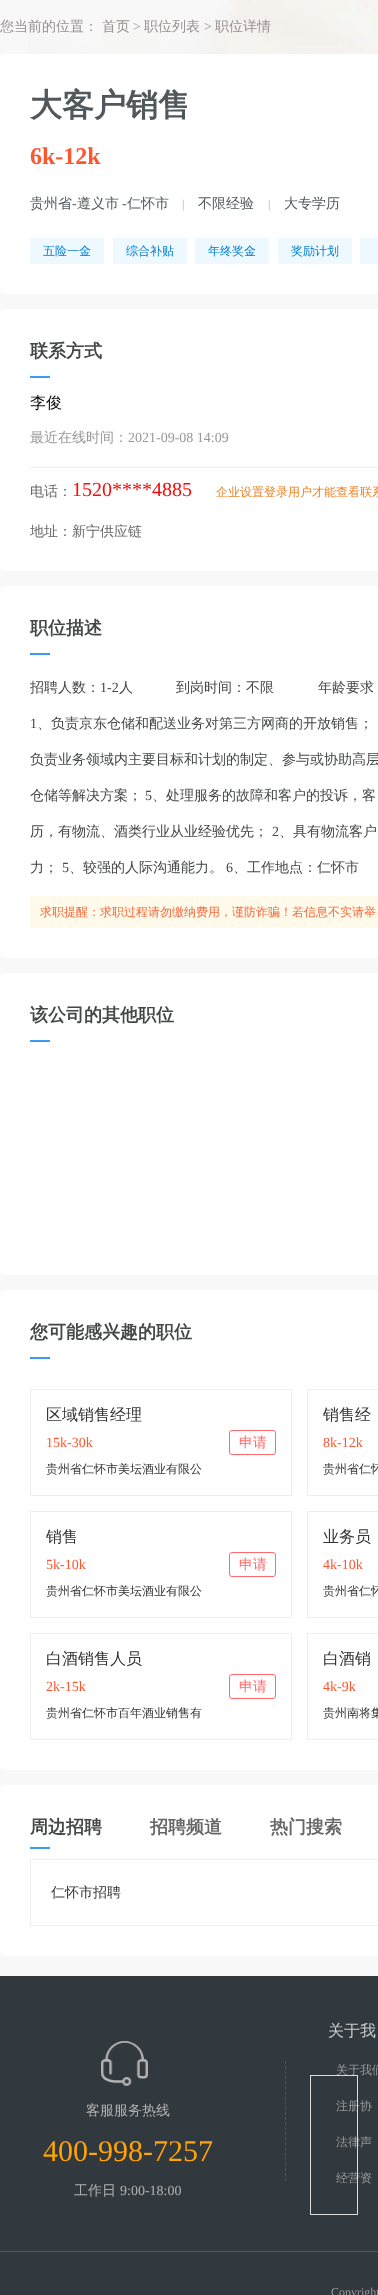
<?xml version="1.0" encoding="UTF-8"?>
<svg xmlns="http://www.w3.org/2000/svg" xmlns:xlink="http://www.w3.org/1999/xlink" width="378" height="2295">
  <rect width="100%" height="100%" fill="#f8f8f8" />
  <image x="28" y="0" width="350" height="54" xlink:href="image1.png" />
  <rect y="54" width="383" height="240" rx="5" fill="#ffffff" />
  <rect x="30" y="238" width="74" height="26" fill="#edf9ff" />
  <rect x="113" y="238" width="74" height="26" fill="#edf9ff" />
  <rect x="195" y="238" width="74" height="26" fill="#edf9ff" />
  <rect x="278" y="238" width="74" height="26" fill="#edf9ff" />
  <rect x="360" y="238" width="18" height="26" fill="#edf9ff" />
  <rect y="309" width="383" height="262" rx="5" fill="#ffffff" />
  <rect x="30" y="376" width="20" height="2" fill="#3d9af6" />
  <rect x="30" y="467" width="348" height="1" fill="#eeeeee" />
  <rect y="586" width="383" height="372" rx="5" fill="#ffffff" />
  <rect x="30" y="653" width="20" height="2" fill="#3d9af6" />
  <rect x="30" y="896" width="348" height="32" fill="#fffaea" />
  <rect y="973" width="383" height="302" rx="5" fill="#ffffff" />
  <rect x="30" y="1040" width="20" height="2" fill="#3d9af6" />
  <rect y="1290" width="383" height="480" rx="5" fill="#ffffff" />
  <rect x="30" y="1357" width="20" height="2" fill="#3d9af6" />
  <rect x="30.5" y="1389.5" width="261" height="106" fill="none" stroke="#eeeeee" />
  <rect x="229.5" y="1430.5" width="46" height="24" rx="2.5" fill="none" stroke="#ff6a6a" />
  <rect x="307.5" y="1389.5" width="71" height="106" fill="none" stroke="#eeeeee" />
  <rect x="30.5" y="1511.5" width="261" height="106" fill="none" stroke="#eeeeee" />
  <rect x="229.5" y="1552.5" width="46" height="24" rx="2.5" fill="none" stroke="#ff6a6a" />
  <rect x="307.5" y="1511.5" width="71" height="106" fill="none" stroke="#eeeeee" />
  <rect x="30.5" y="1633.5" width="261" height="106" fill="none" stroke="#eeeeee" />
  <rect x="229.5" y="1674.5" width="46" height="24" rx="2.5" fill="none" stroke="#ff6a6a" />
  <rect x="307.5" y="1633.5" width="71" height="106" fill="none" stroke="#eeeeee" />
  <rect y="1785" width="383" height="171" rx="5" fill="#ffffff" />
  <rect x="30" y="1847" width="20" height="2" fill="#3d9af6" />
  <rect x="30.5" y="1859.5" width="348" height="66" fill="none" stroke="#eeeeee" />
  <rect y="1976" width="378" height="319" fill="#31383e" />
  <image x="101" y="2041" width="47" height="45" xlink:href="image2.png" />
  <path d="M 285.5 2061 v 120" fill="none" stroke="#555555" stroke-dasharray="3 2.09" />
  <rect y="2251" width="378" height="1" fill="#50565b" />
  <text x="0" y="31" style="font-family: WenQuanYi Zen Hei; font-size: 14px; font-weight: 500; fill: #979191">您当前的位置：</text>
  <text x="102" y="31" style="font-family: WenQuanYi Zen Hei; font-size: 14px; font-weight: 500; fill: #979191">首页</text>
  <text x="133" y="31" style="font-family: Liberation Serif; font-size: 14px; fill: #979191">&gt;</text>
  <text x="144" y="31" style="font-family: WenQuanYi Zen Hei; font-size: 14px; font-weight: 500; fill: #979191">职位列表</text>
  <text x="204" y="31" style="font-family: Liberation Serif; font-size: 14px; fill: #979191">&gt;</text>
  <text x="215" y="31" style="font-family: WenQuanYi Zen Hei; font-size: 14px; font-weight: 500; fill: #979191">职位详情</text>
  <text x="30" y="116" style="font-family: WenQuanYi Zen Hei; font-size: 32px; font-weight: bold; fill: #51585c">大客户销售</text>
  <text x="30" y="164" style="font-family: Liberation Serif; font-size: 24px; font-weight: bold; fill: #ff552e">6k-12k</text>
  <text x="30" y="208" style="font-family: WenQuanYi Zen Hei; font-size: 14px; font-weight: 500; fill: #51585c">贵州省</text>
  <text x="72" y="208" style="font-family: Liberation Serif; font-size: 14px; fill: #51585c">-</text>
  <text x="77" y="208" style="font-family: WenQuanYi Zen Hei; font-size: 14px; font-weight: 500; fill: #51585c">遵义市</text>
  <text x="122" y="208" style="font-family: Liberation Serif; font-size: 14px; fill: #51585c">-</text>
  <text x="127" y="208" style="font-family: WenQuanYi Zen Hei; font-size: 14px; font-weight: 500; fill: #51585c">仁怀市</text>
  <text x="182" y="208" style="font-family: Liberation Serif; font-size: 12px; fill: #b3b1b1">|</text>
  <text x="198" y="208" style="font-family: WenQuanYi Zen Hei; font-size: 14px; font-weight: 500; fill: #51585c">不限经验</text>
  <text x="268" y="208" style="font-family: Liberation Serif; font-size: 12px; fill: #b3b1b1">|</text>
  <text x="284" y="208" style="font-family: WenQuanYi Zen Hei; font-size: 14px; font-weight: 500; fill: #51585c">大专学历</text>
  <text x="43" y="255" style="font-family: WenQuanYi Zen Hei; font-size: 12px; font-weight: 500; fill: #007ccf">五险一金</text>
  <text x="126" y="255" style="font-family: WenQuanYi Zen Hei; font-size: 12px; font-weight: 500; fill: #007ccf">综合补贴</text>
  <text x="208" y="255" style="font-family: WenQuanYi Zen Hei; font-size: 12px; font-weight: 500; fill: #007ccf">年终奖金</text>
  <text x="291" y="255" style="font-family: WenQuanYi Zen Hei; font-size: 12px; font-weight: 500; fill: #007ccf">奖励计划</text>
  <text x="30" y="357" style="font-family: WenQuanYi Zen Hei; font-size: 18px; font-weight: bold; fill: #444746">联系方式</text>
  <text x="30" y="408" style="font-family: WenQuanYi Zen Hei; font-size: 16px; font-weight: 500; fill: #0c0b0b">李俊</text>
  <text x="30" y="442" style="font-family: WenQuanYi Zen Hei; font-size: 14px; font-weight: 500; fill: #999999">最近在线时间：</text>
  <text x="128" y="442" style="font-family: Liberation Serif; font-size: 14px; fill: #999999">2021-09-08 14:09</text>
  <text x="30" y="496" style="font-family: WenQuanYi Zen Hei; font-size: 14px; font-weight: 500; fill: #666666">电话：</text>
  <text x="72" y="496" style="font-family: Liberation Serif; font-size: 20px; fill: #fb0a0a">1520****4885</text>
  <text x="216" y="496" style="font-family: WenQuanYi Zen Hei; font-size: 12px; font-weight: 500; fill: #ea8226">企业设置登录用户才能查看联系</text>
  <text x="30" y="536" style="font-family: WenQuanYi Zen Hei; font-size: 14px; font-weight: 500; fill: #666666">地址：新宁供应链</text>
  <text x="30" y="634" style="font-family: WenQuanYi Zen Hei; font-size: 18px; font-weight: bold; fill: #444746">职位描述</text>
  <text x="30" y="692" style="font-family: WenQuanYi Zen Hei; font-size: 14px; font-weight: 500; fill: #444746">招聘人数：</text>
  <text x="100" y="692" style="font-family: Liberation Serif; font-size: 14px; fill: #444746">1-2</text>
  <text x="119" y="692" style="font-family: WenQuanYi Zen Hei; font-size: 14px; font-weight: 500; fill: #444746">人</text>
  <text x="176" y="692" style="font-family: WenQuanYi Zen Hei; font-size: 14px; font-weight: 500; fill: #444746">到岗时间：不限</text>
  <text x="318" y="692" style="font-family: WenQuanYi Zen Hei; font-size: 14px; font-weight: 500; fill: #444746">年龄要求</text>
  <text x="30" y="728" style="font-family: Liberation Serif; font-size: 14px; fill: #444746">1</text>
  <text x="37" y="728" style="font-family: WenQuanYi Zen Hei; font-size: 14px; font-weight: 500; fill: #444746">、负责京东仓储和配送业务对第三方网商的开放销售；</text>
  <text x="30" y="764" style="font-family: WenQuanYi Zen Hei; font-size: 14px; font-weight: 500; fill: #444746">负责业务领域内主要目标和计划的制定、参与或协助高层</text>
  <text x="30" y="800" style="font-family: WenQuanYi Zen Hei; font-size: 14px; font-weight: 500; fill: #444746">仓储等解决方案；</text>
  <text x="145" y="800" style="font-family: Liberation Serif; font-size: 14px; fill: #444746">5</text>
  <text x="152" y="800" style="font-family: WenQuanYi Zen Hei; font-size: 14px; font-weight: 500; fill: #444746">、处理服务的故障和客户的投诉，客</text>
  <text x="30" y="836" style="font-family: WenQuanYi Zen Hei; font-size: 14px; font-weight: 500; fill: #444746">历，有物流、酒类行业从业经验优先；</text>
  <text x="272" y="836" style="font-family: Liberation Serif; font-size: 14px; fill: #444746">2</text>
  <text x="279" y="836" style="font-family: WenQuanYi Zen Hei; font-size: 14px; font-weight: 500; fill: #444746">、具有物流客户</text>
  <text x="30" y="872" style="font-family: WenQuanYi Zen Hei; font-size: 14px; font-weight: 500; fill: #444746">力；</text>
  <text x="62" y="872" style="font-family: Liberation Serif; font-size: 14px; fill: #444746">5</text>
  <text x="69" y="872" style="font-family: WenQuanYi Zen Hei; font-size: 14px; font-weight: 500; fill: #444746">、较强的人际沟通能力。</text>
  <text x="226" y="872" style="font-family: Liberation Serif; font-size: 14px; fill: #444746">6</text>
  <text x="233" y="872" style="font-family: WenQuanYi Zen Hei; font-size: 14px; font-weight: 500; fill: #444746">、工作地点：仁怀市</text>
  <text x="40" y="916" style="font-family: WenQuanYi Zen Hei; font-size: 12px; font-weight: 500; fill: #f6693d">求职提醒：求职过程请勿缴纳费用，谨防诈骗！若信息不实请举</text>
  <text x="30" y="1021" style="font-family: WenQuanYi Zen Hei; font-size: 18px; font-weight: bold; fill: #444746">该公司的其他职位</text>
  <text x="30" y="1338" style="font-family: WenQuanYi Zen Hei; font-size: 18px; font-weight: bold; fill: #444746">您可能感兴趣的职位</text>
  <text x="46" y="1420" style="font-family: WenQuanYi Zen Hei; font-size: 16px; font-weight: 500; fill: #333333">区域销售经理</text>
  <text x="46" y="1447" style="font-family: Liberation Serif; font-size: 14px; fill: #ff552e">15k-30k</text>
  <text x="239" y="1447" style="font-family: WenQuanYi Zen Hei; font-size: 14px; font-weight: 500; fill: #ff6a6a">申请</text>
  <text x="46" y="1473" style="font-family: WenQuanYi Zen Hei; font-size: 12px; font-weight: 500; fill: #333333">贵州省仁怀市美坛酒业有限公</text>
  <text x="323" y="1420" style="font-family: WenQuanYi Zen Hei; font-size: 16px; font-weight: 500; fill: #333333">销售经</text>
  <text x="323" y="1447" style="font-family: Liberation Serif; font-size: 14px; fill: #ff552e">8k-12k</text>
  <text x="323" y="1473" style="font-family: WenQuanYi Zen Hei; font-size: 12px; font-weight: 500; fill: #333333">贵州省仁怀</text>
  <text x="46" y="1542" style="font-family: WenQuanYi Zen Hei; font-size: 16px; font-weight: 500; fill: #333333">销售</text>
  <text x="46" y="1569" style="font-family: Liberation Serif; font-size: 14px; fill: #ff552e">5k-10k</text>
  <text x="239" y="1569" style="font-family: WenQuanYi Zen Hei; font-size: 14px; font-weight: 500; fill: #ff6a6a">申请</text>
  <text x="46" y="1595" style="font-family: WenQuanYi Zen Hei; font-size: 12px; font-weight: 500; fill: #333333">贵州省仁怀市美坛酒业有限公</text>
  <text x="323" y="1542" style="font-family: WenQuanYi Zen Hei; font-size: 16px; font-weight: 500; fill: #333333">业务员</text>
  <text x="323" y="1569" style="font-family: Liberation Serif; font-size: 14px; fill: #ff552e">4k-10k</text>
  <text x="323" y="1595" style="font-family: WenQuanYi Zen Hei; font-size: 12px; font-weight: 500; fill: #333333">贵州省仁怀</text>
  <text x="46" y="1664" style="font-family: WenQuanYi Zen Hei; font-size: 16px; font-weight: 500; fill: #333333">白酒销售人员</text>
  <text x="46" y="1691" style="font-family: Liberation Serif; font-size: 14px; fill: #ff552e">2k-15k</text>
  <text x="239" y="1691" style="font-family: WenQuanYi Zen Hei; font-size: 14px; font-weight: 500; fill: #ff6a6a">申请</text>
  <text x="46" y="1717" style="font-family: WenQuanYi Zen Hei; font-size: 12px; font-weight: 500; fill: #333333">贵州省仁怀市百年酒业销售有</text>
  <text x="323" y="1664" style="font-family: WenQuanYi Zen Hei; font-size: 16px; font-weight: 500; fill: #333333">白酒销</text>
  <text x="323" y="1691" style="font-family: Liberation Serif; font-size: 14px; fill: #ff552e">4k-9k</text>
  <text x="323" y="1717" style="font-family: WenQuanYi Zen Hei; font-size: 12px; font-weight: 500; fill: #333333">贵州南将集</text>
  <text x="30" y="1833" style="font-family: WenQuanYi Zen Hei; font-size: 18px; font-weight: bold; fill: #444746">周边招聘</text>
  <text x="150" y="1833" style="font-family: WenQuanYi Zen Hei; font-size: 18px; font-weight: bold; fill: #666666">招聘频道</text>
  <text x="270" y="1833" style="font-family: WenQuanYi Zen Hei; font-size: 18px; font-weight: bold; fill: #666666">热门搜索</text>
  <text x="51" y="1897" style="font-family: WenQuanYi Zen Hei; font-size: 14px; font-weight: 500; fill: #333333">仁怀市招聘</text>
  <text x="86" y="2115" style="font-family: WenQuanYi Zen Hei; font-size: 14px; font-weight: 500; fill: #b3b1b1">客服服务热线</text>
  <text x="43" y="2161" style="font-family: Liberation Serif; font-size: 30px; fill: #ffa405">400-998-7257</text>
  <text x="74" y="2195" style="font-family: WenQuanYi Zen Hei; font-size: 14px; font-weight: 500; fill: #b3b1b1">工作日</text>
  <text x="120" y="2195" style="font-family: Liberation Serif; font-size: 14px; fill: #b3b1b1">9:00-18:00</text>
  <text x="328" y="2036" style="font-family: WenQuanYi Zen Hei; font-size: 16px; font-weight: 500; fill: #cccccc">关于我</text>
  <text x="336" y="2074" style="font-family: WenQuanYi Zen Hei; font-size: 12px; font-weight: 500; fill: #999999">关于我们</text>
  <text x="336" y="2110" style="font-family: WenQuanYi Zen Hei; font-size: 12px; font-weight: 500; fill: #999999">注册协</text>
  <text x="336" y="2146" style="font-family: WenQuanYi Zen Hei; font-size: 12px; font-weight: 500; fill: #999999">法律声</text>
  <text x="336" y="2182" style="font-family: WenQuanYi Zen Hei; font-size: 12px; font-weight: 500; fill: #999999">经营资</text>
  <text x="331" y="2296" style="font-family: Liberation Serif; font-size: 12px; fill: #999999">Copyright</text>
  <rect x="310.5" y="2075.5" width="47" height="139" fill="none" stroke="#dddddd" />
</svg>
